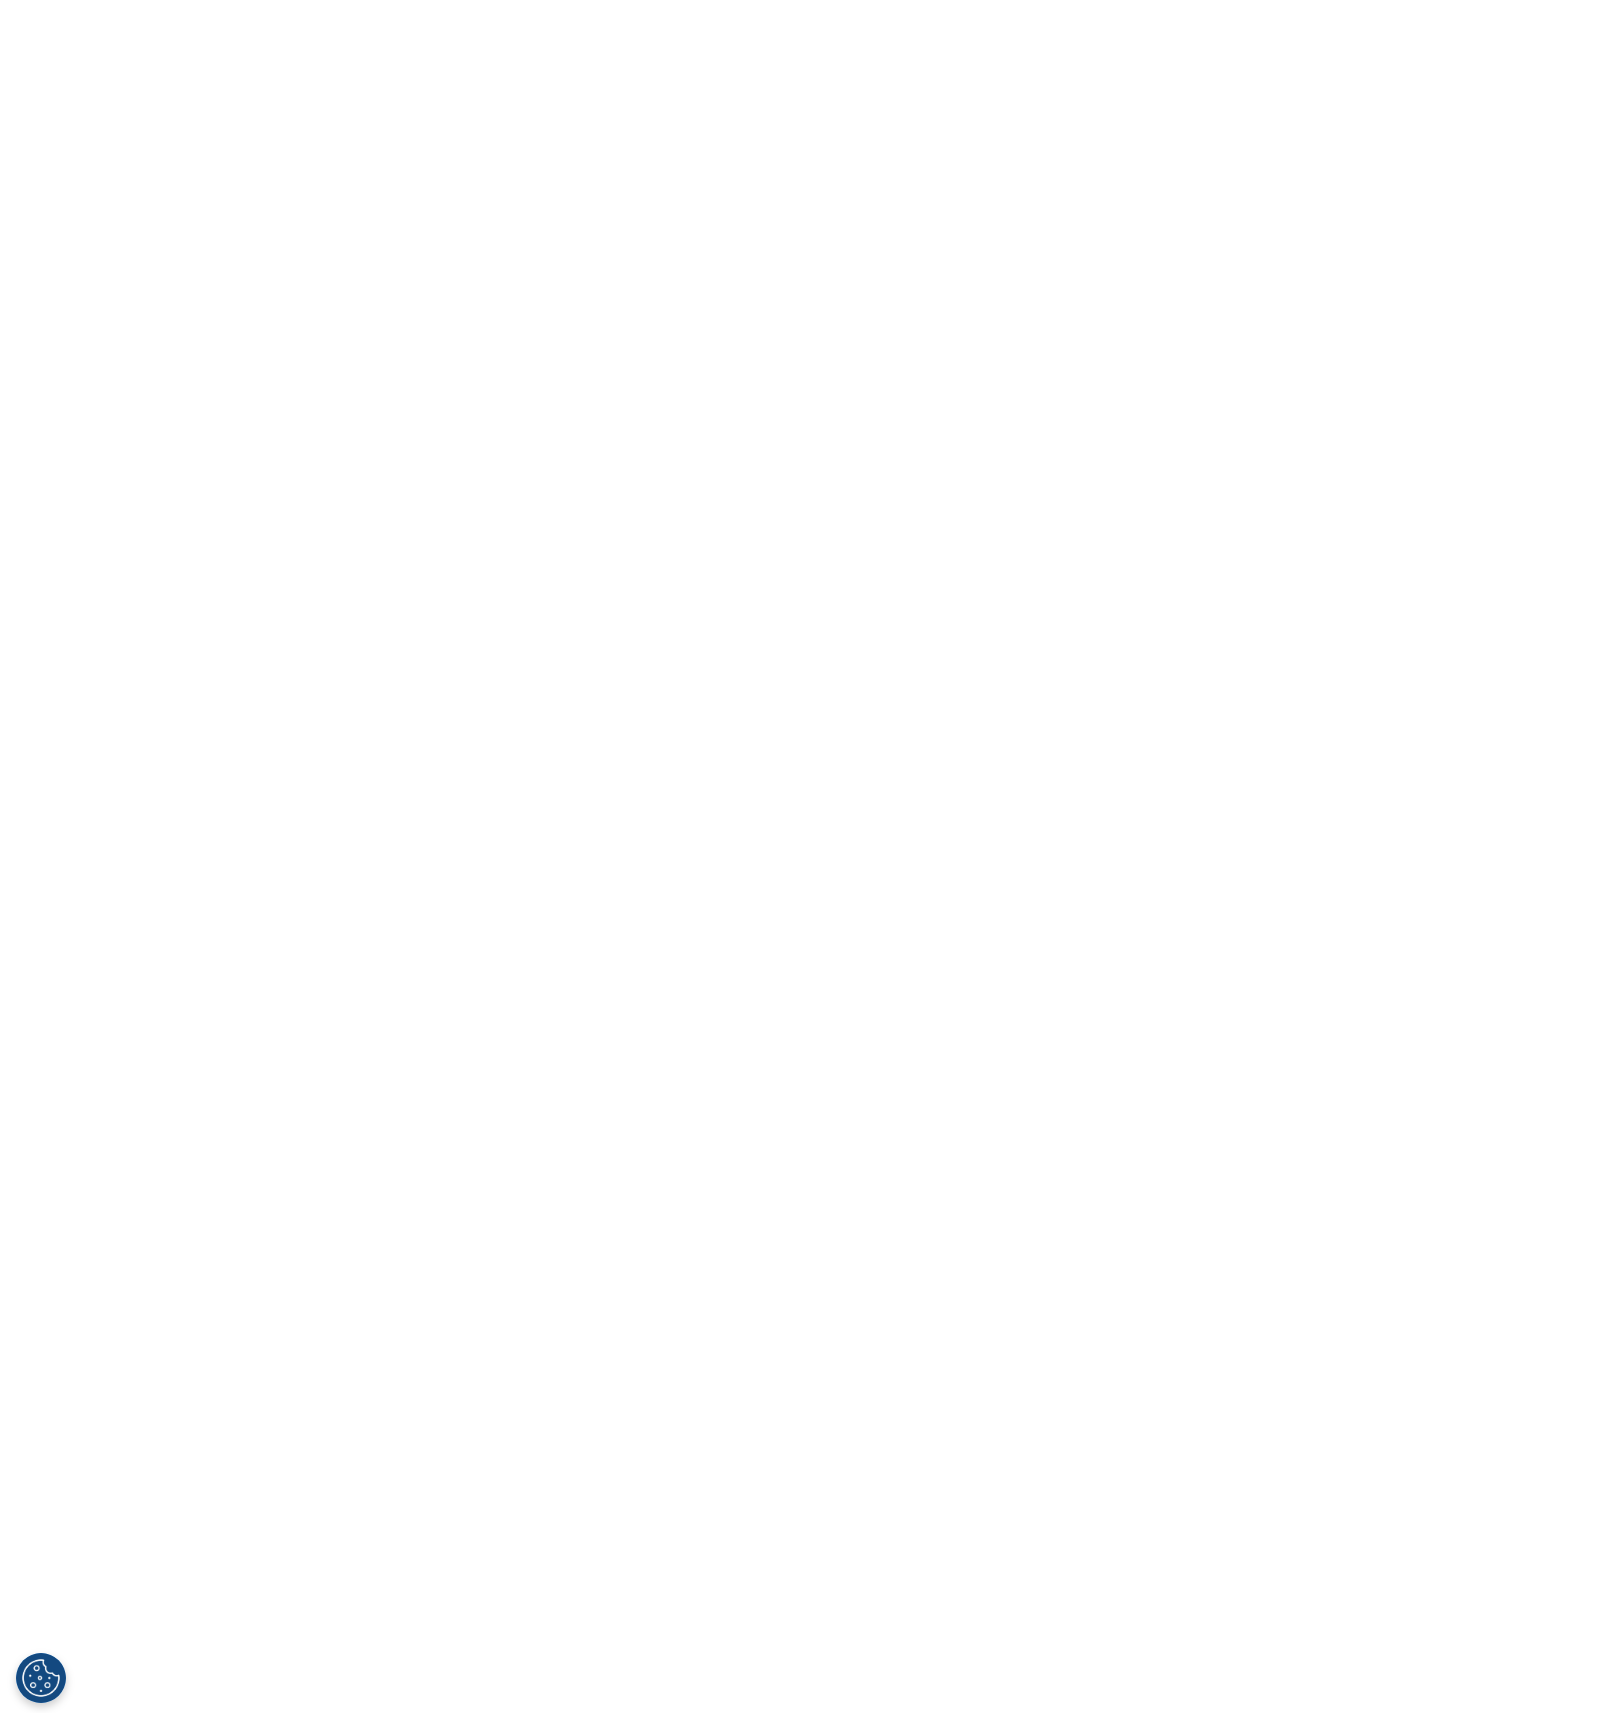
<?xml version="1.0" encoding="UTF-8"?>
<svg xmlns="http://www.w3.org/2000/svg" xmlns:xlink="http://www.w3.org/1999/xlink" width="1615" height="1713">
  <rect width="100%" height="100%" fill="#ffffff" />
  <rect x="16" y="1657" width="50" height="50" rx="25" fill="#000000" fill-opacity="0.2" filter="blur(4px)" />
  <circle cx="41" cy="1678" r="25" fill="#6aaae4" />
  <image x="16" y="1653" width="50" height="50" xlink:href="image1.png" />
</svg>
